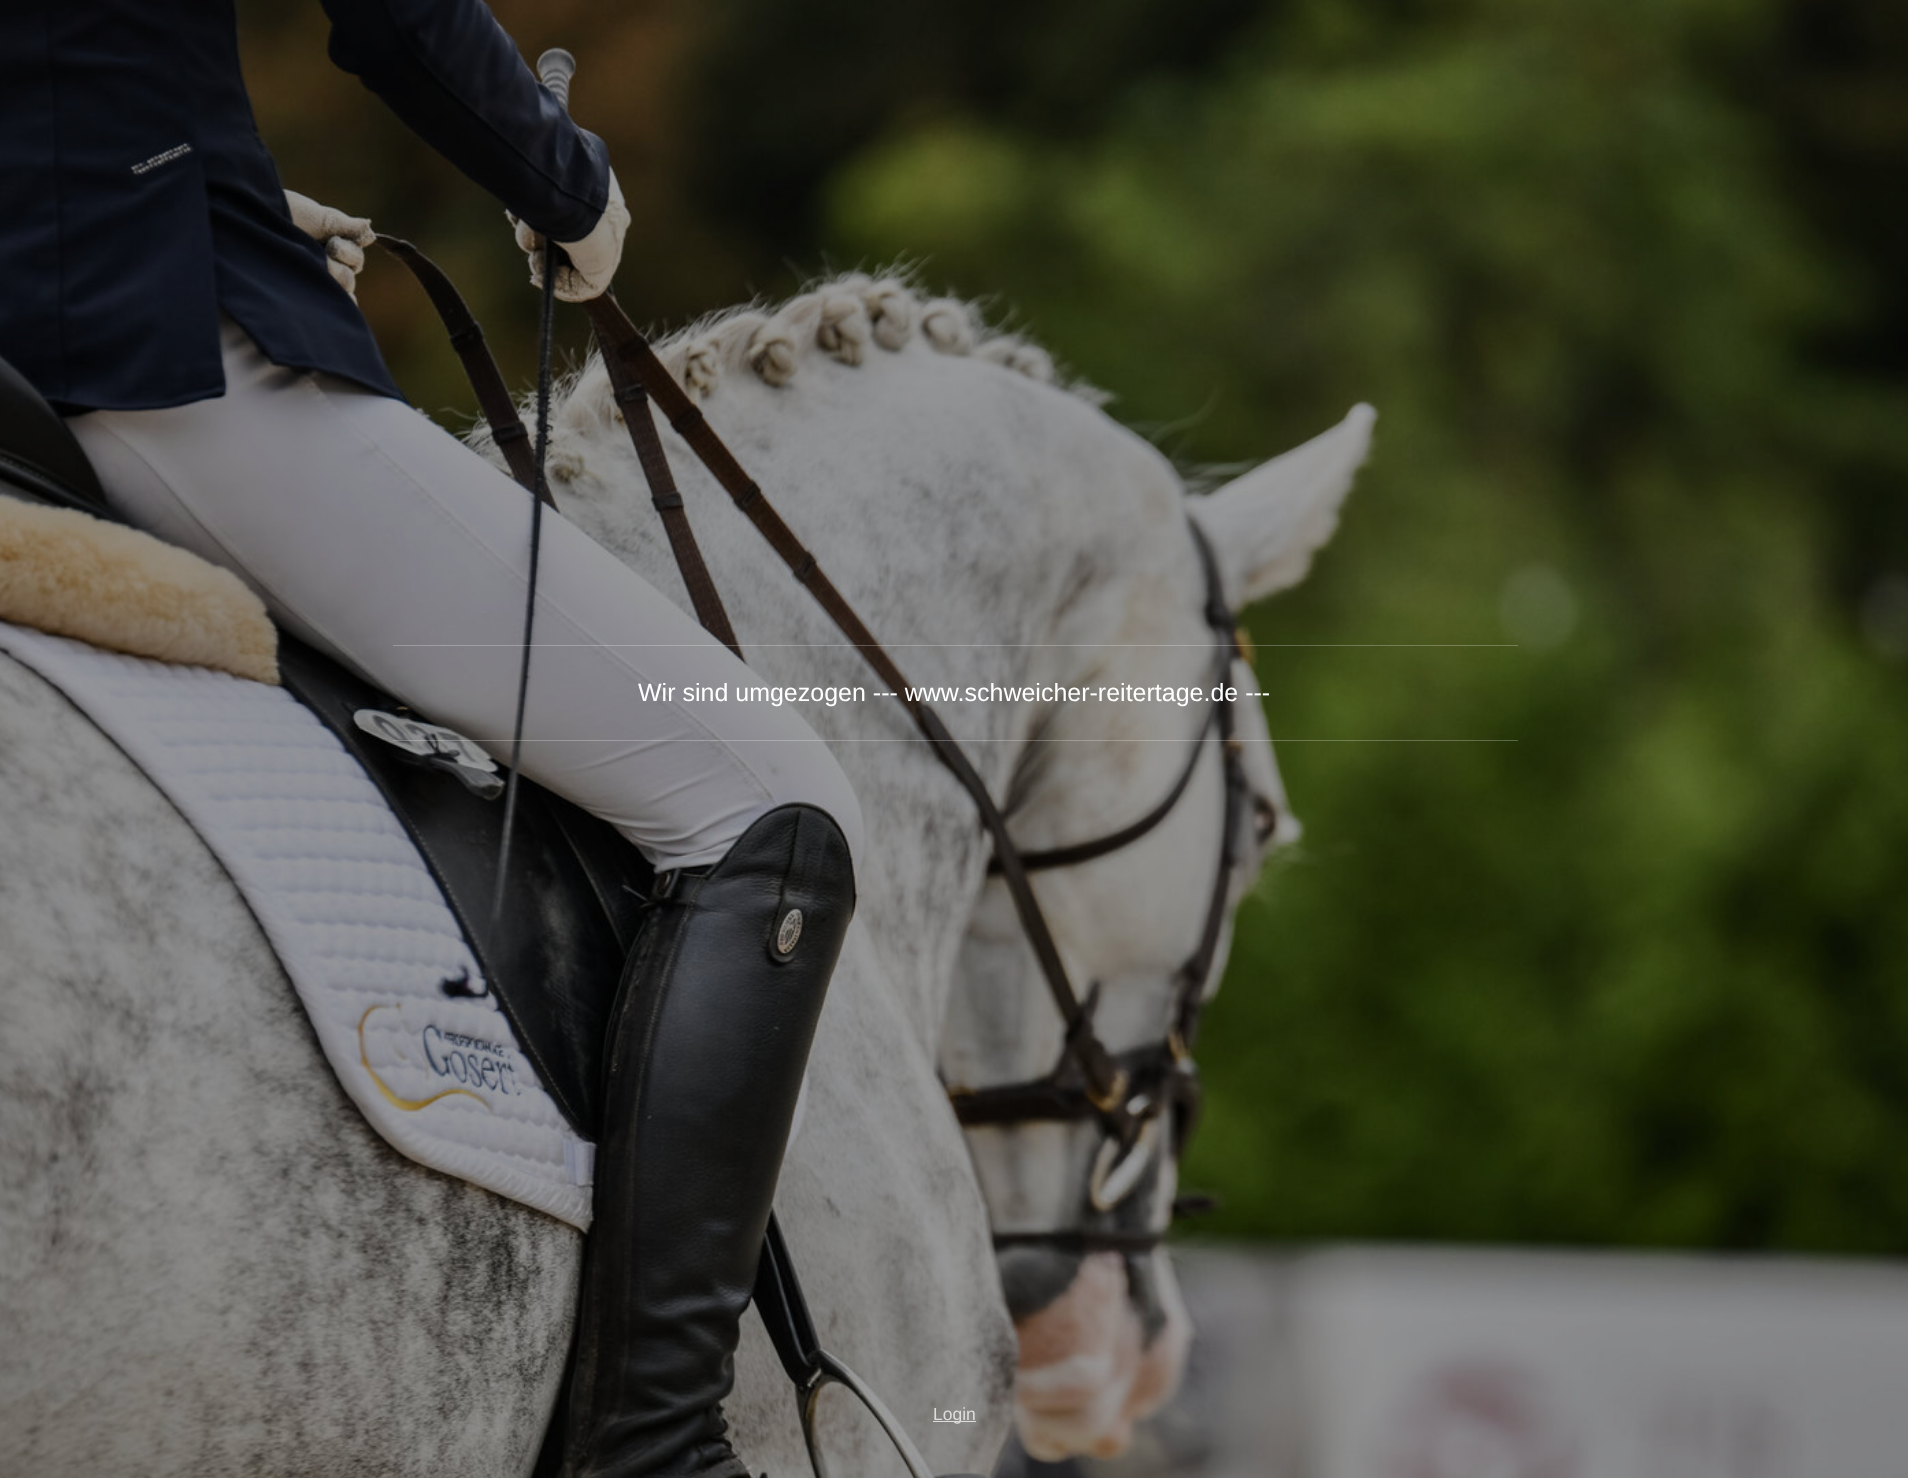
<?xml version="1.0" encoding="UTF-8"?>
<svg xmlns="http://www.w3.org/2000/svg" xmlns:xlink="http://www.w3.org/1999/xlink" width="1908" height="1478">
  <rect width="100%" height="100%" fill="#ffffff" />
  <image x="0" y="0" width="1908" height="1478" xlink:href="image1.png" />
  <rect x="393" y="645" width="1125" height="1" fill="#ffffff" fill-opacity="0.25" />
  <rect x="393" y="740" width="1125" height="1" fill="#ffffff" fill-opacity="0.25" />
  <rect x="933" y="1421" width="43" height="1" fill="#dddddd" />
  <text x="638" y="701" style="font-family: Liberation Sans; font-size: 25px; fill: #ffffff">Wir sind umgezogen --- www.schweicher-reitertage.de ---</text>
  <text x="933" y="1420" style="font-family: Liberation Sans; font-size: 17.5px; fill: #dddddd">Login</text>
</svg>
